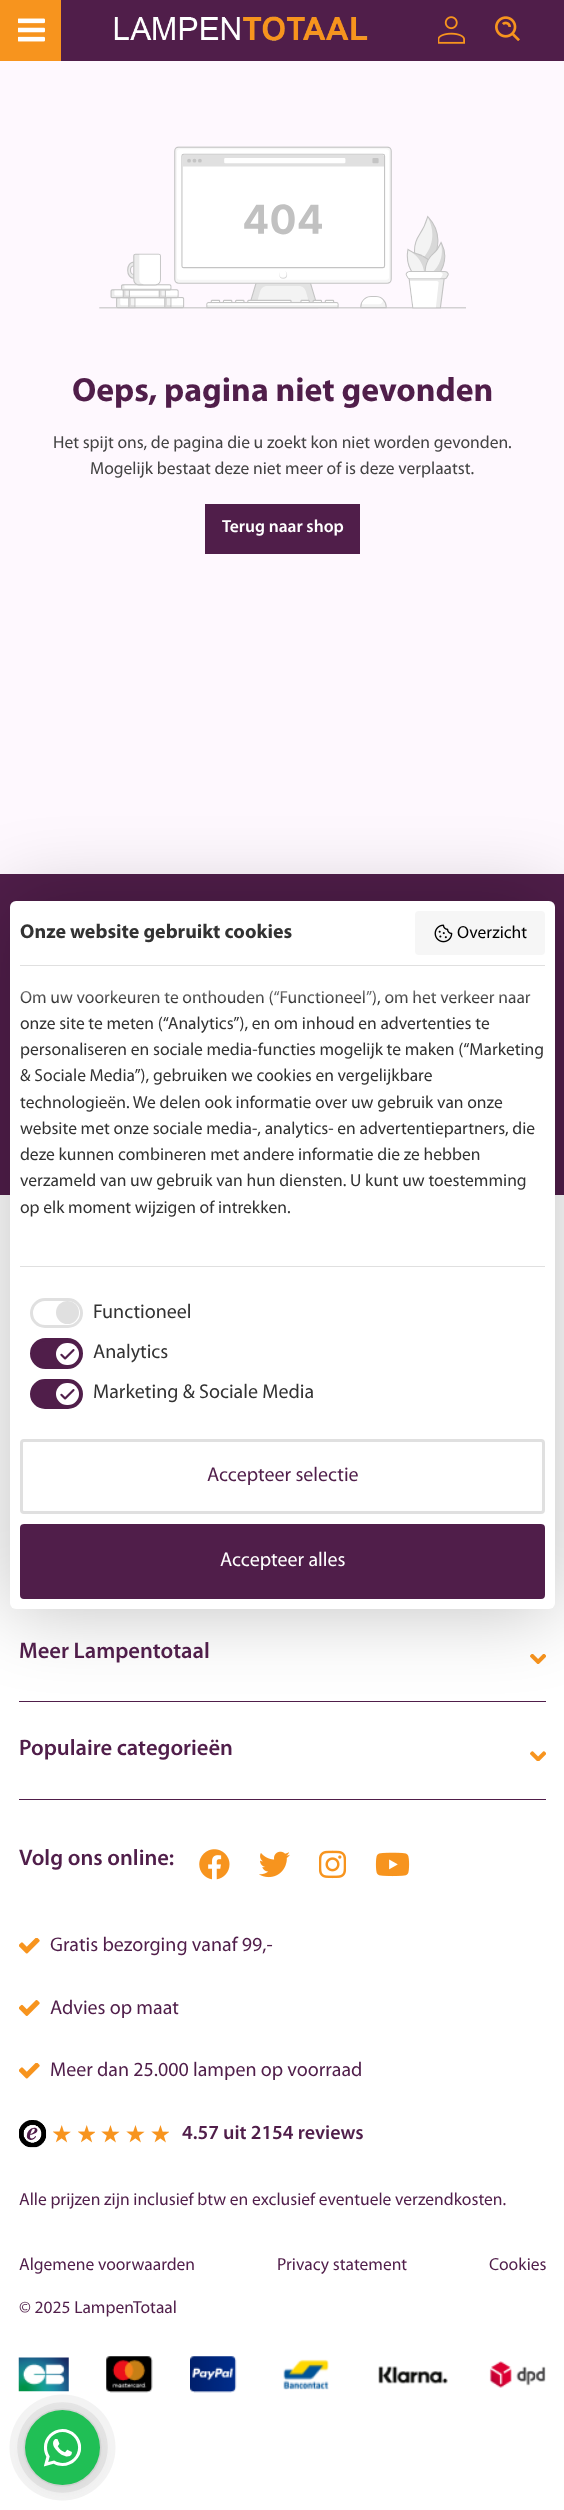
<?xml version="1.0" encoding="UTF-8"?>
<svg xmlns="http://www.w3.org/2000/svg" xmlns:xlink="http://www.w3.org/1999/xlink" width="564" height="2510">
  <defs>
    <linearGradient id="g1" gradientUnits="userSpaceOnUse" x1="283" y1="1003" x2="283" y2="965"><stop offset="0" stop-color="#ffffff" stop-opacity="0" /><stop offset="1" stop-color="#ffffff" /></linearGradient>
  </defs>
  <rect width="100%" height="100%" fill="#fef8fe" />
  <rect x="61" width="503" height="61" fill="#501e4a" />
  <rect width="61" height="61" fill="#f7941e" />
  <image x="18" y="18" width="27" height="24" xlink:href="image1.png" />
  <image x="114" y="16" width="254" height="25" xlink:href="image2.png" />
  <image x="438" y="16" width="27" height="28" xlink:href="image3.png" />
  <image x="495" y="16" width="25" height="25" xlink:href="image4.png" />
  <image x="99" y="146" width="367" height="163" xlink:href="image5.png" />
  <rect x="205" y="504" width="155" height="50" fill="#501e4a" />
  <rect y="1195" width="564" height="1315" fill="#ffffff" />
  <rect y="874" width="564" height="321" fill="#501e4a" />
  <rect x="19" y="1701" width="527" height="1" fill="#501e4a" />
  <image x="530" y="1654" width="16" height="10" xlink:href="image8.png" />
  <rect x="10" y="901" width="545" height="708" rx="6" fill="#000000" fill-opacity="0.25" filter="blur(40px)" />
  <rect x="10" y="901" width="545" height="708" rx="6" fill="#ffffff" />
  <rect x="415" y="911" width="130" height="44" rx="4" fill="#f6f6f6" />
  <image x="434" y="924" width="19" height="19" xlink:href="image6.png" />
  <rect x="20" y="965" width="525" height="1" fill="#e0e0e0" />
  <rect x="20" y="1266" width="525" height="1" fill="#e0e0e0" />
  <rect x="31.5" y="1299.5" width="50" height="27" rx="13.5" fill="none" stroke="#e0e0e0" stroke-width="3" />
  <circle cx="67.5" cy="1312.5" r="11.5" fill="#e0e0e0" />
  <rect x="31.5" y="1339.5" width="50" height="28" rx="14" fill="#501e4a" stroke="#501e4a" stroke-width="3" />
  <rect x="56" y="1343" width="23" height="22" rx="11" fill="#ffffff" />
  <image x="60" y="1349" width="15" height="11" xlink:href="image7.png" />
  <rect x="31.5" y="1380.5" width="50" height="27" rx="13.5" fill="#501e4a" stroke="#501e4a" stroke-width="3" />
  <rect x="56" y="1383" width="23" height="22" rx="11" fill="#ffffff" />
  <image x="60" y="1389" width="15" height="11" xlink:href="image7.png" />
  <rect x="21.5" y="1440.5" width="522" height="72" rx="2.5" fill="none" stroke="#e0e0e0" stroke-width="3" />
  <rect x="21.5" y="1525.5" width="522" height="72" rx="2.5" fill="#501e4a" stroke="#501e4a" stroke-width="3" />
  <rect x="19" y="1799" width="527" height="1" fill="#501e4a" />
  <image x="530" y="1751" width="16" height="10" xlink:href="image9.png" />
  <image x="199" y="1849" width="31" height="31" xlink:href="image10.png" />
  <image x="259" y="1851" width="31" height="27" xlink:href="image11.png" />
  <image x="319" y="1850" width="27" height="29" xlink:href="image12.png" />
  <image x="375" y="1852" width="35" height="25" xlink:href="image13.png" />
  <image x="19" y="1938" width="21" height="16" xlink:href="image14.png" />
  <image x="19" y="2000" width="21" height="16" xlink:href="image15.png" />
  <image x="19" y="2063" width="21" height="16" xlink:href="image14.png" />
  <image x="19" y="2120" width="28" height="28" xlink:href="image16.png" />
  <image x="53" y="2125" width="18" height="18" xlink:href="image17.png" />
  <image x="78" y="2125" width="17" height="18" xlink:href="image18.png" />
  <image x="101" y="2125" width="19" height="18" xlink:href="image19.png" />
  <image x="126" y="2125" width="19" height="18" xlink:href="image19.png" />
  <image x="151" y="2125" width="18" height="18" xlink:href="image20.png" />
  <image x="18" y="2357" width="51" height="35" xlink:href="image21.png" />
  <image x="106" y="2356" width="47" height="37" xlink:href="image22.png" />
  <image x="190" y="2356" width="47" height="37" xlink:href="image23.png" />
  <image x="283" y="2359" width="46" height="31" xlink:href="image24.png" />
  <image x="378" y="2366" width="70" height="18" xlink:href="image25.png" />
  <image x="489" y="2361" width="57" height="27" xlink:href="image26.png" />
  <image x="9" y="2394" width="107" height="107" xlink:href="image27.png" />
  <text x="72" y="401" style="font-family: Myriad; font-size: 33.75px; font-weight: bold; fill: #501e4a">Oeps, pagina niet gevonden</text>
  <text x="53" y="448" style="font-family: Myriad; font-size: 17.5px; fill: #434343">Het spijt ons, de pagina die u zoekt kon niet worden gevonden.</text>
  <text x="90" y="474" style="font-family: Myriad; font-size: 17.5px; fill: #434343">Mogelijk bestaat deze niet meer of is deze verplaatst.</text>
  <text x="222" y="532" style="font-family: Myriad; font-size: 17.5px; font-weight: 600; fill: #ffffff">Terug naar shop</text>
  <text x="20" y="938" style="font-family: Myriad; font-size: 20px; font-weight: bold; fill: #333333">Onze website gebruikt cookies</text>
  <text x="457" y="938" style="font-family: Myriad; font-size: 17.5px; fill: #000000">Overzicht</text>
  <text x="20" y="1003" style="font-family: Myriad; font-size: 17.5px; fill: #333333">Om uw voorkeuren te onthouden (“Functioneel”), om het verkeer naar</text>
  <text x="20" y="1029" style="font-family: Myriad; font-size: 17.5px; fill: #333333">onze site te meten (“Analytics”), en om inhoud en advertenties te</text>
  <text x="20" y="1055" style="font-family: Myriad; font-size: 17.5px; fill: #333333">personaliseren en sociale media-functies mogelijk te maken (“Marketing</text>
  <text x="20" y="1081" style="font-family: Myriad; font-size: 17.5px; fill: #333333">&amp; Sociale Media”), gebruiken we cookies en vergelijkbare</text>
  <text x="20" y="1108" style="font-family: Myriad; font-size: 17.5px; fill: #333333">technologieën. We delen ook informatie over uw gebruik van onze</text>
  <text x="20" y="1134" style="font-family: Myriad; font-size: 17.5px; fill: #333333">website met onze sociale media-, analytics- en advertentiepartners, die</text>
  <text x="20" y="1160" style="font-family: Myriad; font-size: 17.5px; fill: #333333">deze kunnen combineren met andere informatie die ze hebben</text>
  <text x="20" y="1186" style="font-family: Myriad; font-size: 17.5px; fill: #333333">verzameld van uw gebruik van hun diensten. U kunt uw toestemming</text>
  <text x="20" y="1213" style="font-family: Myriad; font-size: 17.5px; fill: #333333">op elk moment wijzigen of intrekken.</text>
  <rect x="20" y="990" width="511" height="12" fill="url(#g1)" />
  <text x="93" y="1318" style="font-family: Myriad; font-size: 20px; fill: #333333">Functioneel</text>
  <text x="93" y="1358" style="font-family: Myriad; font-size: 20px; fill: #333333">Analytics</text>
  <text x="93" y="1398" style="font-family: Myriad; font-size: 20px; fill: #333333">Marketing &amp; Sociale Media</text>
  <text x="207" y="1481" style="font-family: Myriad; font-size: 20px; fill: #501e4a">Accepteer selectie</text>
  <text x="220" y="1566" style="font-family: Myriad; font-size: 20px; fill: #ffffff">Accepteer alles</text>
  <text x="19" y="1658" style="font-family: Myriad; font-size: 22.5px; font-weight: 600; fill: #501e4a">Meer Lampentotaal</text>
  <text x="19" y="1755" style="font-family: Myriad; font-size: 22.5px; font-weight: 600; fill: #501e4a">Populaire categorieën</text>
  <text x="19" y="1865" style="font-family: Myriad; font-size: 22.5px; font-weight: 600; fill: #501e4a">Volg ons online:</text>
  <text x="50" y="1951" style="font-family: Myriad; font-size: 20px; fill: #501e4a">Gratis bezorging vanaf 99,-</text>
  <text x="50" y="2014" style="font-family: Myriad; font-size: 20px; fill: #501e4a">Advies op maat</text>
  <text x="50" y="2076" style="font-family: Myriad; font-size: 20px; fill: #501e4a">Meer dan 25.000 lampen op voorraad</text>
  <text x="182" y="2139" style="font-family: Myriad; font-size: 20px; font-weight: 600; fill: #501e4a">4.57 uit 2154 reviews</text>
  <text x="19" y="2205" style="font-family: Myriad; font-size: 17.5px; fill: #501e4a">Alle prijzen zijn inclusief btw en exclusief eventuele verzendkosten.</text>
  <text x="19" y="2270" style="font-family: Myriad; font-size: 17.5px; fill: #501e4a">Algemene voorwaarden</text>
  <text x="277" y="2270" style="font-family: Myriad; font-size: 17.5px; fill: #501e4a">Privacy statement</text>
  <text x="489" y="2270" style="font-family: Myriad; font-size: 17.5px; fill: #501e4a">Cookies</text>
  <text x="19" y="2313" style="font-family: Myriad; font-size: 17.5px; fill: #501e4a">© 2025 LampenTotaal</text>
</svg>
